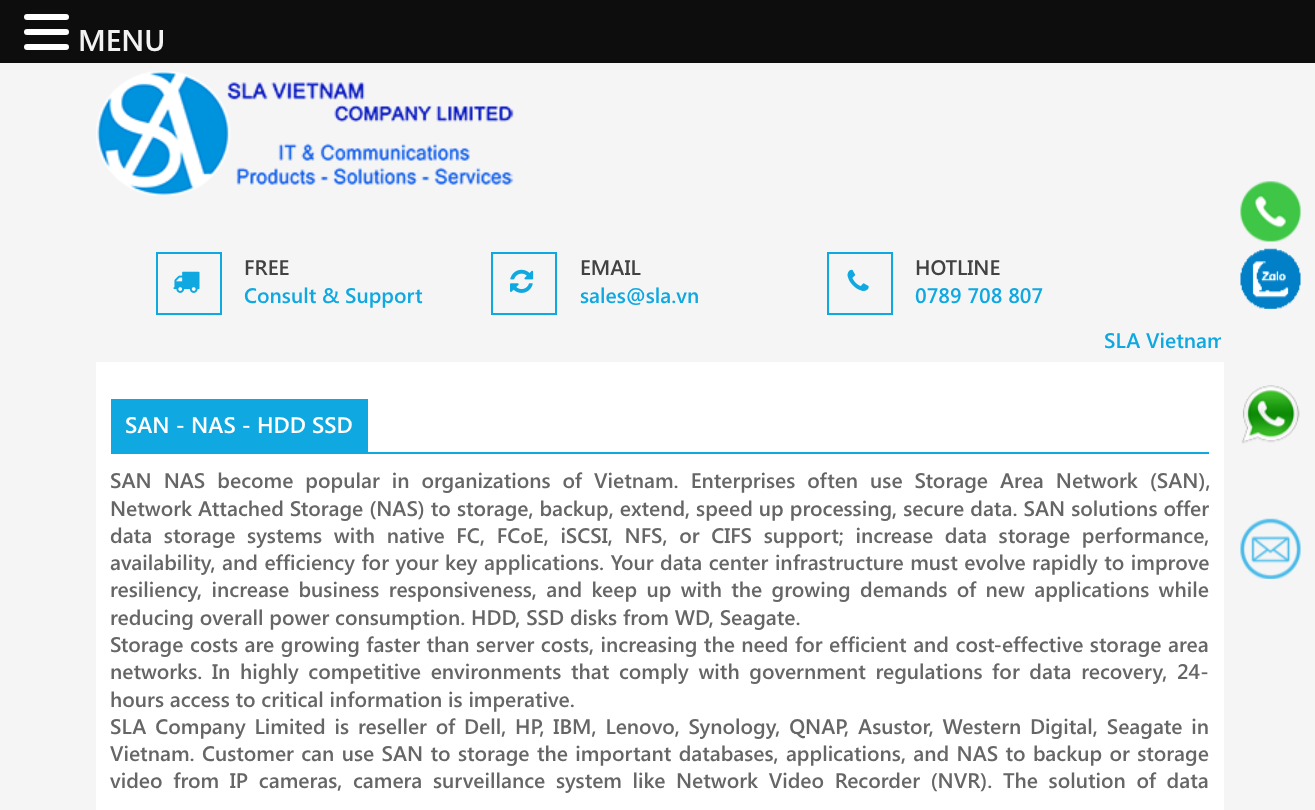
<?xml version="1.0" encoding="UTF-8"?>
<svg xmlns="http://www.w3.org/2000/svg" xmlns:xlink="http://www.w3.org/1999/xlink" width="1315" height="810">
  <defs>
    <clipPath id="clip1"><rect x="156" y="327" width="1065" height="27" /></clipPath>
  </defs>
  <rect width="100%" height="100%" fill="#f5f5f5" />
  <rect width="1315" height="63" fill="#0d0d0d" />
  <rect x="24" y="14" width="45" height="6" rx="3" fill="#ffffff" />
  <rect x="24" y="29" width="45" height="6" rx="3" fill="#ffffff" />
  <rect x="24" y="44" width="45" height="6" rx="3" fill="#ffffff" />
  <image x="1240" y="181" width="61" height="61" xlink:href="image1.png" />
  <image x="1240" y="248" width="61" height="61" xlink:href="image2.png" />
  <image x="1241" y="385" width="59" height="59" xlink:href="image3.png" />
  <image x="1240" y="518" width="61" height="61" xlink:href="image4.png" />
  <image x="96" y="71" width="418" height="125" xlink:href="image5.png" />
  <rect x="157" y="253" width="64" height="61" fill="none" stroke="#0fa8e1" stroke-width="2" />
  <image x="173" y="271" width="27" height="22" xlink:href="image6.png" />
  <rect x="492" y="253" width="64" height="61" fill="none" stroke="#0fa8e1" stroke-width="2" />
  <image x="510" y="269" width="24" height="24" xlink:href="image7.png" />
  <rect x="828" y="253" width="64" height="61" fill="none" stroke="#0fa8e1" stroke-width="2" />
  <image x="847" y="269" width="22" height="22" xlink:href="image8.png" />
  <rect x="96" y="362" width="1128" height="448" fill="#ffffff" />
  <rect x="111" y="452" width="1098" height="2" fill="#0fa8e1" />
  <rect x="111" y="399" width="257" height="53" fill="#0fa8e1" />
  <text x="78" y="51" style="font-family: Segoe UI; font-size: 30px; font-weight: 600; fill: #f2f2f2">MENU</text>
  <text x="244" y="275" style="font-family: Segoe UI; font-size: 21px; font-weight: 600; fill: #424242">FREE</text>
  <text x="244" y="303" style="font-family: Segoe UI; font-size: 21px; font-weight: 600; fill: #0fa8e1">Consult &amp; Support</text>
  <text x="580" y="275" style="font-family: Segoe UI; font-size: 21px; font-weight: 600; fill: #424242">EMAIL</text>
  <text x="580" y="303" style="font-family: Segoe UI; font-size: 21px; font-weight: 600; fill: #0fa8e1">sales@sla.vn</text>
  <text x="915" y="275" style="font-family: Segoe UI; font-size: 21px; font-weight: 600; fill: #424242">HOTLINE</text>
  <text x="915" y="303" style="font-family: Segoe UI; font-size: 21px; font-weight: 600; fill: #0fa8e1">0789 708 807</text>
  <g clip-path="url(#clip1)">
    <text x="1104" y="348" style="font-family: Segoe UI; font-size: 21px; font-weight: 600; fill: #0fa8e1">SLA Vietnam</text>
  </g>
  <text x="125" y="433" style="font-family: Segoe UI; font-size: 22.5px; font-weight: 600; fill: #ffffff">SAN - NAS - HDD SSD</text>
  <text x="110" y="488" word-spacing="6.25" style="font-family: Segoe UI; font-size: 21px; font-weight: 600; fill: #666666">SAN NAS become popular in organizations of Vietnam. Enterprises often use Storage Area Network (SAN),</text>
  <text x="110" y="516" word-spacing="0.25" style="font-family: Segoe UI; font-size: 21px; font-weight: 600; fill: #666666">Network Attached Storage (NAS) to storage, backup, extend, speed up processing, secure data. SAN solutions offer</text>
  <text x="110" y="543" word-spacing="5.9" style="font-family: Segoe UI; font-size: 21px; font-weight: 600; fill: #666666">data storage systems with native FC, FCoE, iSCSI, NFS, or CIFS support; increase data storage performance,</text>
  <text x="110" y="570" word-spacing="0.75" style="font-family: Segoe UI; font-size: 21px; font-weight: 600; fill: #666666">availability, and efficiency for your key applications. Your data center infrastructure must evolve rapidly to improve</text>
  <text x="110" y="597" word-spacing="3.6" style="font-family: Segoe UI; font-size: 21px; font-weight: 600; fill: #666666">resiliency, increase business responsiveness, and keep up with the growing demands of new applications while</text>
  <text x="110" y="625" style="font-family: Segoe UI; font-size: 21px; font-weight: 600; fill: #666666">reducing overall power consumption. HDD, SSD disks from WD, Seagate.</text>
  <text x="110" y="652" word-spacing="0.75" style="font-family: Segoe UI; font-size: 21px; font-weight: 600; fill: #666666">Storage costs are growing faster than server costs, increasing the need for efficient and cost-effective storage area</text>
  <text x="110" y="679" word-spacing="3.9" style="font-family: Segoe UI; font-size: 21px; font-weight: 600; fill: #666666">networks. In highly competitive environments that comply with government regulations for data recovery, 24-</text>
  <text x="110" y="707" style="font-family: Segoe UI; font-size: 21px; font-weight: 600; fill: #666666">hours access to critical information is imperative.</text>
  <text x="110" y="734" word-spacing="3.1" style="font-family: Segoe UI; font-size: 21px; font-weight: 600; fill: #666666">SLA Company Limited is reseller of Dell, HP, IBM, Lenovo, Synology, QNAP, Asustor, Western Digital, Seagate in</text>
  <text x="110" y="761" word-spacing="1.6" style="font-family: Segoe UI; font-size: 21px; font-weight: 600; fill: #666666">Vietnam. Customer can use SAN to storage the important databases, applications, and NAS to backup or storage</text>
  <text x="110" y="788" word-spacing="4.9" style="font-family: Segoe UI; font-size: 21px; font-weight: 600; fill: #666666">video from IP cameras, camera surveillance system like Network Video Recorder (NVR). The solution of data</text>
</svg>
